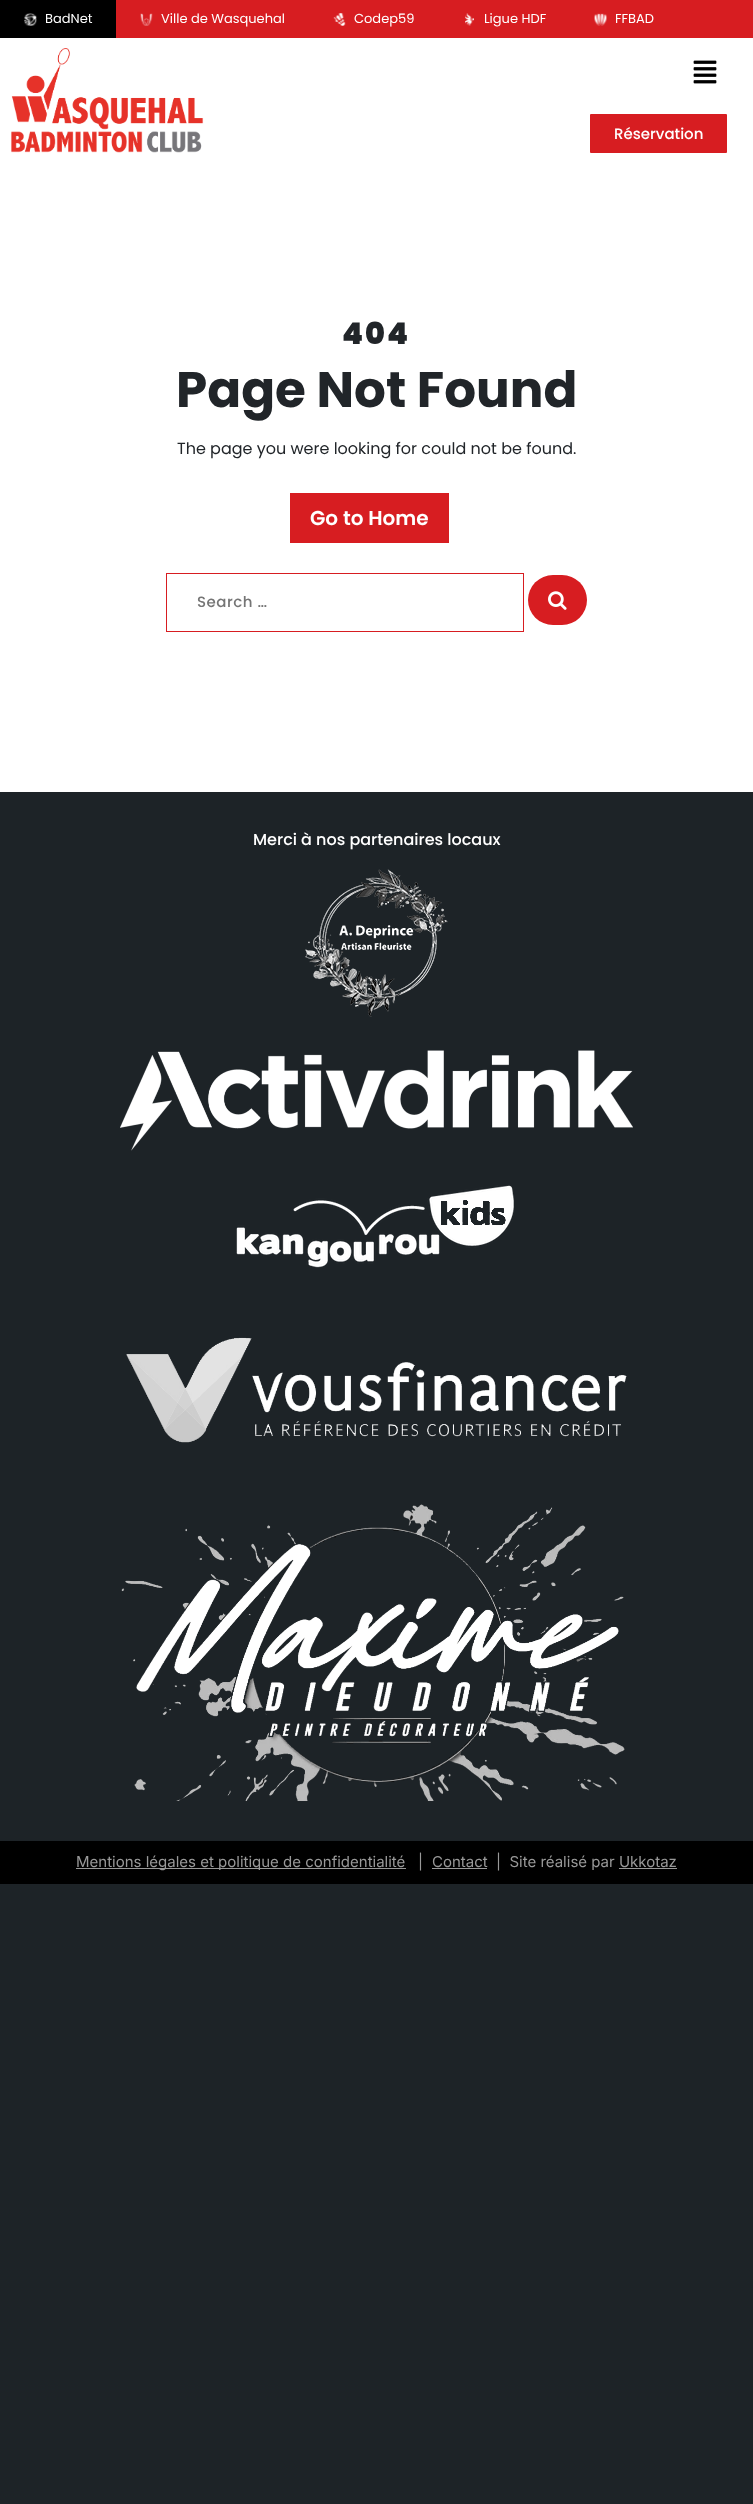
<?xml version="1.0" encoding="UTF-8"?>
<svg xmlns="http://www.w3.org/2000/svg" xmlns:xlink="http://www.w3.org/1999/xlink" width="753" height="2504">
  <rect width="100%" height="100%" fill="#1d2327" />
  <rect y="38" width="753" height="754" fill="#ffffff" />
  <rect x="309" width="444" height="38" fill="#d71d21" />
  <rect width="116" height="38" fill="#000000" />
  <path d="M -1 -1 h 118 v 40 h -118 z" fill="none" stroke="#ffffff" stroke-width="2" stroke-dasharray="2 2" />
  <image x="24" y="13" width="13" height="13" xlink:href="image1.png" />
  <rect x="116" width="193" height="38" fill="#d71d21" />
  <image x="140" y="13" width="13" height="13" xlink:href="image2.png" />
  <image x="333" y="13" width="13" height="13" xlink:href="image3.png" />
  <image x="465" y="13" width="9" height="13" xlink:href="image4.png" />
  <image x="594" y="13" width="13" height="13" xlink:href="image5.png" />
  <image x="11" y="48" width="193" height="105" xlink:href="image6.png" />
  <image x="693" y="60" width="24" height="24" xlink:href="image7.png" />
  <rect x="590" y="114" width="137" height="39" rx="1" fill="#d71d21" />
  <rect x="290" y="493" width="159" height="50" fill="#d71d21" />
  <rect x="166.5" y="573.5" width="357" height="58" fill="none" stroke="#d71d21" />
  <rect x="528" y="575" width="59" height="50" rx="25" fill="#d71d21" />
  <image x="548" y="591" width="19" height="19" xlink:href="image8.png" />
  <image x="305" y="869" width="143" height="148" xlink:href="image9.png" />
  <image x="120" y="1050" width="513" height="101" xlink:href="image10.png" />
  <image x="236" y="1185" width="278" height="83" xlink:href="image11.png" />
  <image x="126" y="1337" width="501" height="106" xlink:href="image12.png" />
  <image x="121" y="1504" width="504" height="297" xlink:href="image13.png" />
  <rect y="1841" width="753" height="43" fill="#000000" />
  <rect x="76" y="1868" width="330" height="1" fill="#999999" />
  <rect x="432" y="1868" width="55" height="1" fill="#999999" />
  <rect x="619" y="1868" width="58" height="1" fill="#999999" />
  <text x="45" y="23" style="font-family: Poppins; font-size: 13px; fill: #ffffff">BadNet</text>
  <text x="161" y="23" style="font-family: Poppins; font-size: 13px; fill: #ffffff">Ville de Wasquehal</text>
  <text x="354" y="23" style="font-family: Poppins; font-size: 13px; fill: #ffffff">Codep59</text>
  <text x="484" y="23" style="font-family: Poppins; font-size: 13px; fill: #ffffff">Ligue HDF</text>
  <text x="615" y="23" style="font-family: Poppins; font-size: 13px; fill: #ffffff">FFBAD</text>
  <text x="614" y="139" style="font-family: Poppins; font-size: 15px; font-weight: 500; fill: #ffffff">Réservation</text>
  <text x="342" y="344" style="font-family: Poppins; font-size: 30px; font-weight: 900; letter-spacing: 2px; fill: #212529">404</text>
  <text x="176" y="407" style="font-family: Poppins; font-size: 50px; font-weight: bold; fill: #212529">Page Not Found</text>
  <text x="177" y="454" style="font-family: Poppins; font-size: 16px; fill: #212529">The page you were looking for could not be found.</text>
  <text x="310" y="525" style="font-family: Poppins; font-size: 20px; font-weight: 600; fill: #ffffff">Go to Home</text>
  <text x="197" y="607" style="font-family: Poppins; font-size: 15px; font-weight: 500; letter-spacing: 0.5px; fill: #757575">Search …</text>
  <text x="253" y="845" style="font-family: Poppins; font-size: 16px; font-weight: 500; fill: #ffffff">Merci à nos partenaires locaux</text>
  <text x="76" y="1867" style="font-family: Inter; font-size: 15px; fill: #999999">Mentions légales et politique de confidentialité</text>
  <text x="418" y="1867" style="font-family: Inter; font-size: 15px; fill: #999999">|</text>
  <text x="432" y="1867" style="font-family: Inter; font-size: 15px; fill: #999999">Contact</text>
  <text x="496" y="1867" style="font-family: Inter; font-size: 15px; fill: #999999" xml:space="preserve">|  Site réalisé par Ukkotaz</text>
</svg>
